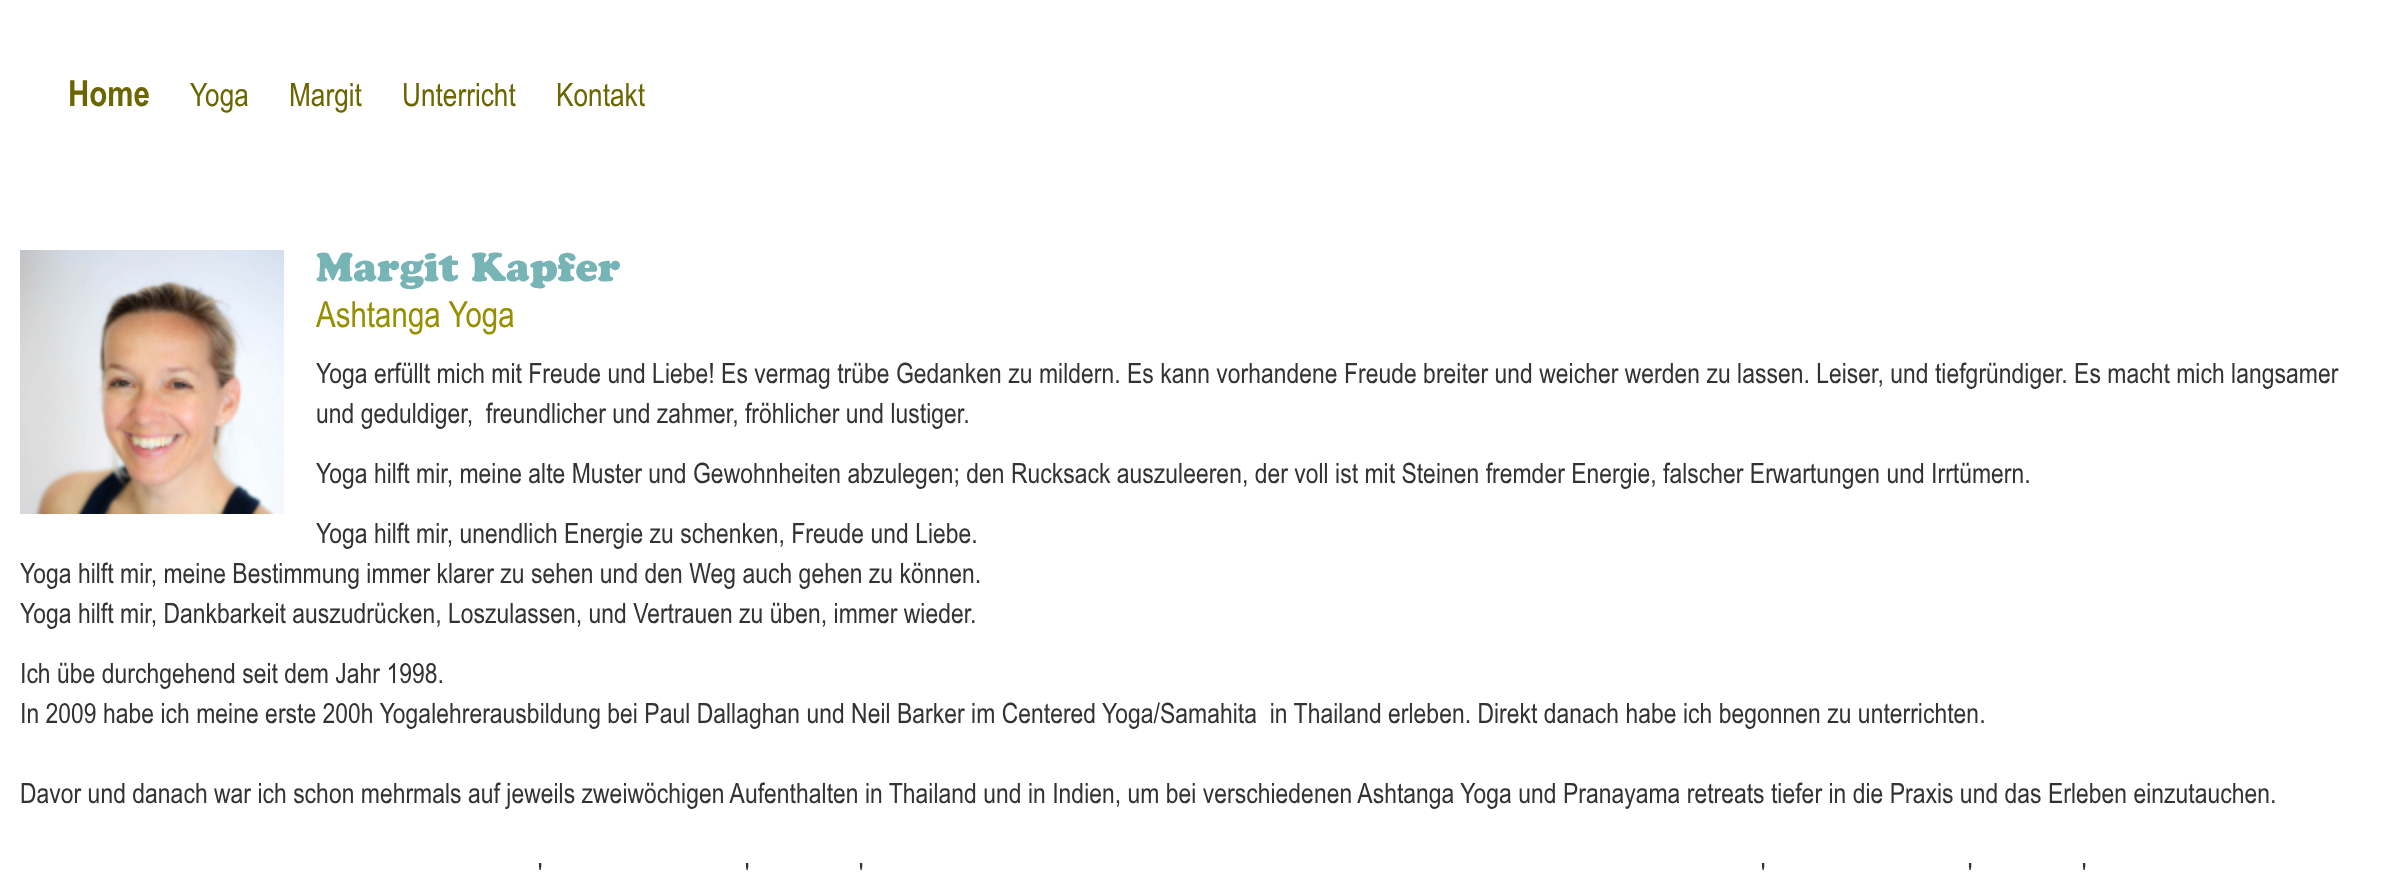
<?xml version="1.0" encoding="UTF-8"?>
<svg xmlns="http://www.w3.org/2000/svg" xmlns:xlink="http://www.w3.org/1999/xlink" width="2384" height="874">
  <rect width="100%" height="100%" fill="#ffffff" />
  <image x="20" y="250" width="264" height="264" xlink:href="image1.png" />
  <text x="68" y="106" style="font-family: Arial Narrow; font-size: 36px; font-weight: bold; fill: #6b6600">Home</text>
  <text x="190" y="106" style="font-family: Arial Narrow; font-size: 32px; fill: #6b6600">Yoga</text>
  <text x="289" y="106" style="font-family: Arial Narrow; font-size: 32px; fill: #6b6600">Margit</text>
  <text x="402" y="106" style="font-family: Arial Narrow; font-size: 32px; fill: #6b6600">Unterricht</text>
  <text x="556" y="106" style="font-family: Arial Narrow; font-size: 32px; fill: #6b6600">Kontakt</text>
  <text x="316" y="281" style="font-family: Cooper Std; font-size: 40px; font-weight: 900; fill: #76b4b6">Margit Kapfer</text>
  <text x="316" y="327" style="font-family: Arial Narrow; font-size: 36px; fill: #978e00">Ashtanga Yoga</text>
  <text x="316" y="383" style="font-family: Arial Narrow; font-size: 28px; fill: #333333">Yoga erfüllt mich mit Freude und Liebe! Es vermag trübe Gedanken zu mildern. Es kann vorhandene Freude breiter und weicher werden zu lassen. Leiser, und tiefgründiger. Es macht mich langsamer</text>
  <text x="316" y="423" style="font-family: Arial Narrow; font-size: 28px; fill: #333333" xml:space="preserve">und geduldiger,  freundlicher und zahmer, fröhlicher und lustiger.</text>
  <text x="316" y="483" style="font-family: Arial Narrow; font-size: 28px; fill: #333333">Yoga hilft mir, meine alte Muster und Gewohnheiten abzulegen; den Rucksack auszuleeren, der voll ist mit Steinen fremder Energie, falscher Erwartungen und Irrtümern.</text>
  <text x="316" y="543" style="font-family: Arial Narrow; font-size: 28px; fill: #333333">Yoga hilft mir, unendlich Energie zu schenken, Freude und Liebe.</text>
  <text x="20" y="583" style="font-family: Arial Narrow; font-size: 28px; fill: #333333">Yoga hilft mir, meine Bestimmung immer klarer zu sehen und den Weg auch gehen zu können.</text>
  <text x="20" y="623" style="font-family: Arial Narrow; font-size: 28px; fill: #333333">Yoga hilft mir, Dankbarkeit auszudrücken, Loszulassen, und Vertrauen zu üben, immer wieder.</text>
  <text x="20" y="683" style="font-family: Arial Narrow; font-size: 28px; fill: #333333">Ich übe durchgehend seit dem Jahr 1998.</text>
  <text x="20" y="723" style="font-family: Arial Narrow; font-size: 28px; fill: #333333" xml:space="preserve">In 2009 habe ich meine erste 200h Yogalehrerausbildung bei Paul Dallaghan und Neil Barker im Centered Yoga/Samahita  in Thailand erleben. Direkt danach habe ich begonnen zu unterrichten.</text>
  <text x="20" y="803" style="font-family: Arial Narrow; font-size: 28px; fill: #333333">Davor und danach war ich schon mehrmals auf jeweils zweiwöchigen Aufenthalten in Thailand und in Indien, um bei verschiedenen Ashtanga Yoga und Pranayama retreats tiefer in die Praxis und das Erleben einzutauchen.</text>
  <text x="538" y="883" style="font-family: Arial Narrow; font-size: 28px; fill: #333333">'</text>
  <text x="745" y="883" style="font-family: Arial Narrow; font-size: 28px; fill: #333333">'</text>
  <text x="859" y="883" style="font-family: Arial Narrow; font-size: 28px; fill: #333333">'</text>
  <text x="1761" y="883" style="font-family: Arial Narrow; font-size: 28px; fill: #333333">'</text>
  <text x="1968" y="883" style="font-family: Arial Narrow; font-size: 28px; fill: #333333">'</text>
  <text x="2082" y="883" style="font-family: Arial Narrow; font-size: 28px; fill: #333333">'</text>
</svg>
